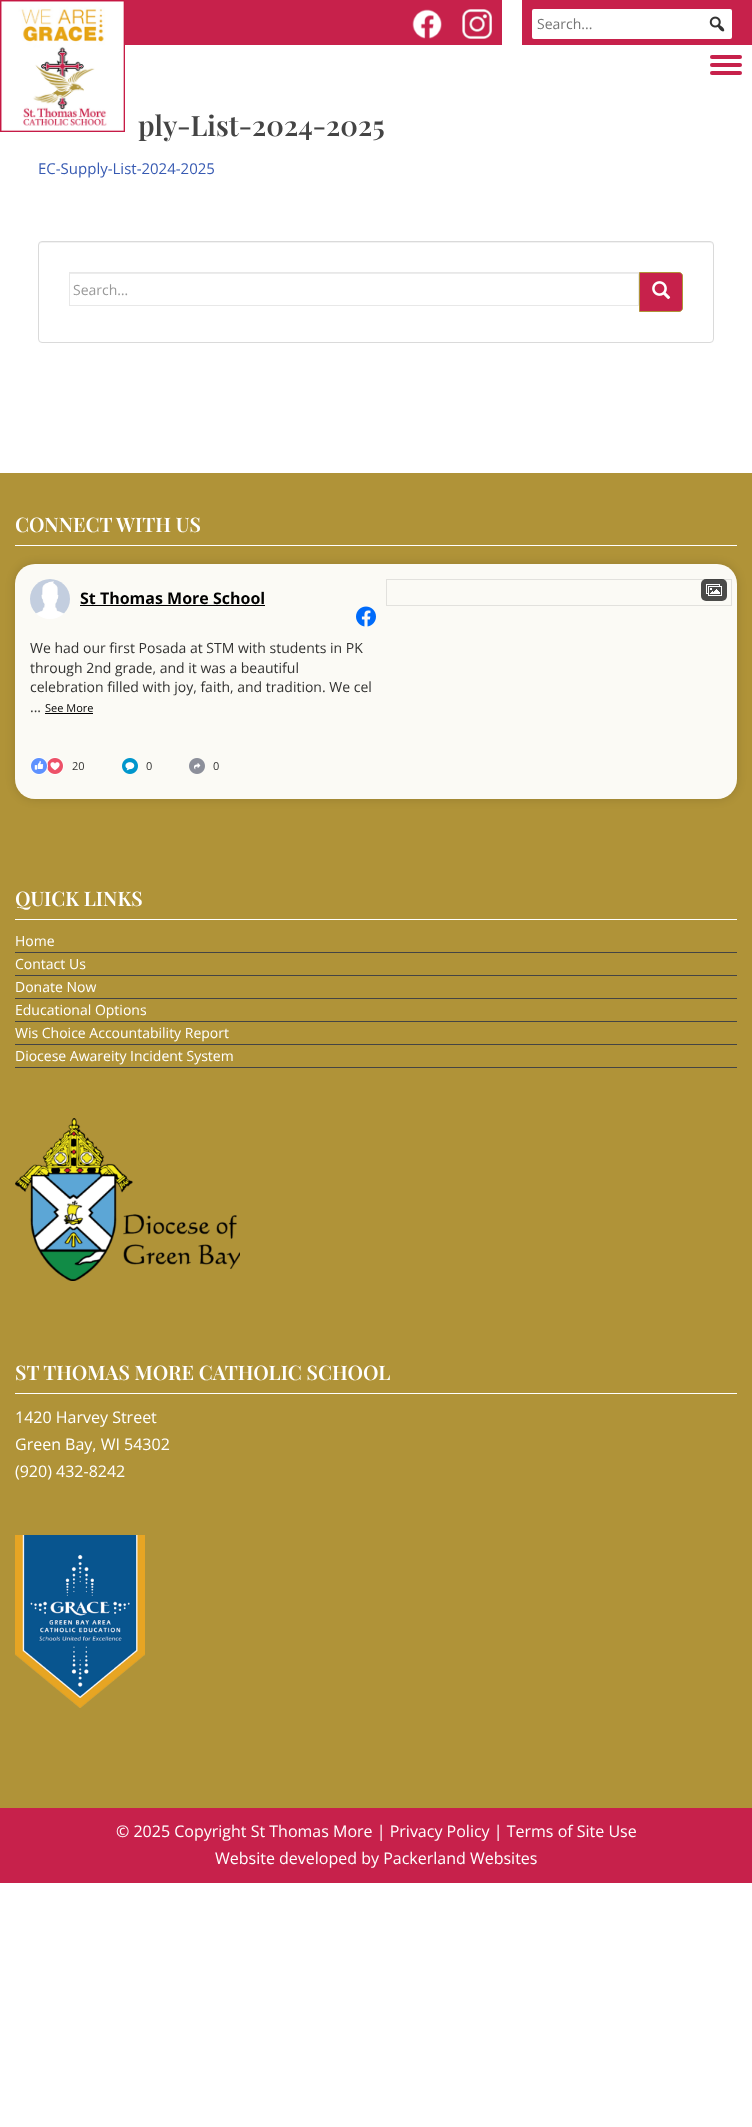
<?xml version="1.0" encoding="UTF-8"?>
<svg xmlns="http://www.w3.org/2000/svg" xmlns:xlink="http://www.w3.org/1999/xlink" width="752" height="2127">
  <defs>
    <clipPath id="clip1"><path d="M 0 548 h 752 v 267 h -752 z m 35 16 h 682 c 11 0 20 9 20 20 v 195 c 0 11 -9 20 -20 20 h -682 c -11 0 -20 -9 -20 -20 v -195 c 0 -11 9 -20 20 -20 z" clip-rule="evenodd" /></clipPath>
  </defs>
  <rect width="100%" height="100%" fill="#ffffff" />
  <image x="0" y="0" width="125" height="132" xlink:href="image1.png" />
  <rect x="125" width="627" height="45" fill="#c7214b" />
  <image x="412" y="9" width="30" height="30" xlink:href="image2.png" />
  <image x="462" y="9" width="30" height="30" xlink:href="image3.png" />
  <rect x="502" width="20" height="45" fill="#ffffff" />
  <rect x="532" y="9" width="200" height="30" rx="2" fill="#ffffff" />
  <image x="709" y="16" width="16" height="16" xlink:href="image4.png" />
  <rect x="710" y="55" width="32" height="4" rx="2" fill="#c7214b" />
  <rect x="710" y="63" width="32" height="4" rx="2" fill="#c7214b" />
  <rect x="710" y="71" width="32" height="4" rx="2" fill="#c7214b" />
  <path d="M 42 243 h 668 c 2 0 3 1 3 3 v -1 c 0 -2 -1 -3 -3 -3 h -668 c -2 0 -3 1 -3 3 v 1 c 0 -2 1 -3 3 -3 z" fill="#f2f2f2" />
  <rect x="38.5" y="241.5" width="675" height="101" rx="3.5" fill="none" stroke="#dadada" />
  <rect x="70" y="273" width="568" height="1" fill="#ececec" />
  <rect x="69.5" y="272.5" width="569" height="33" fill="none" stroke="#e8e8e8" />
  <path d="M 639.5 272.5 h 39.5 c 2 0 3.5 1.5 3.5 3.5 v 32 c 0 2 -1.5 3.5 -3.5 3.5 h -39.5 z" fill="#c7214b" stroke="#b09338" />
  <image x="652" y="281" width="19" height="19" xlink:href="image5.png" />
  <rect y="473" width="752" height="1335" fill="#b09338" />
  <rect x="15" y="545" width="722" height="1" fill="#ffffff" />
  <g clip-path="url(#clip1)">
    <rect x="15" y="564" width="722" height="235" rx="20" fill="#000000" fill-opacity="0.15" filter="blur(5px)" />
  </g>
  <rect x="15" y="564" width="722" height="235" rx="20" fill="#ffffff" fill-opacity="0.95" />
  <image x="30" y="579" width="40" height="40" xlink:href="image6.png" />
  <rect x="80" y="605" width="185" height="1" fill="#000000" />
  <image x="356" y="606" width="20" height="21" xlink:href="image7.png" />
  <rect x="45" y="713" width="48" height="1" fill="#000000" />
  <circle cx="55" cy="766" r="8.5" fill="none" stroke="#ffffff" />
  <image x="47" y="758" width="16" height="16" xlink:href="image9.png" />
  <circle cx="39" cy="766" r="8.5" fill="none" stroke="#ffffff" />
  <image x="31" y="758" width="16" height="16" xlink:href="image8.png" />
  <image x="122" y="758" width="16" height="16" xlink:href="image10.png" />
  <image x="189" y="758" width="16" height="16" xlink:href="image11.png" />
  <rect x="386.5" y="579.5" width="345" height="26" fill="none" stroke="#e2e1dd" />
  <rect x="701" y="579" width="26" height="22" rx="5" fill="#000000" fill-opacity="0.7" />
  <image x="706" y="584" width="16" height="12" xlink:href="image12.png" />
  <rect x="15" y="919" width="722" height="1" fill="#ffffff" />
  <rect x="15" y="952" width="722" height="1" fill="#444444" />
  <rect x="15" y="975" width="722" height="1" fill="#444444" />
  <rect x="15" y="998" width="722" height="1" fill="#444444" />
  <rect x="15" y="1021" width="722" height="1" fill="#444444" />
  <rect x="15" y="1044" width="722" height="1" fill="#444444" />
  <rect x="15" y="1067" width="722" height="1" fill="#444444" />
  <image x="15" y="1118" width="225" height="163" xlink:href="image13.png" />
  <rect x="15" y="1393" width="722" height="1" fill="#ffffff" />
  <image x="15" y="1535" width="130" height="173" xlink:href="image14.png" />
  <rect y="1808" width="752" height="75" fill="#c7214b" />
  <text x="537" y="29" style="font-family: Open Sans; font-size: 14px; fill: #757575">Search...</text>
  <text x="138" y="136" style="font-family: Playfair Display; font-size: 28px; font-weight: 600; fill: #444444">ply-List-2024-2025</text>
  <text x="38" y="174" style="font-family: Open Sans; font-size: 15px; fill: #375ab2">EC-Supply-List-2024-2025</text>
  <text x="73" y="295" style="font-family: Open Sans; font-size: 14px; fill: #999999">Search…</text>
  <text x="15" y="532" style="font-family: Playfair Display; font-size: 20px; font-weight: 600; fill: #ffffff">CONNECT WITH US</text>
  <text x="80" y="604" style="font-family: Open Sans; font-size: 16px; font-weight: bold; fill: #000000">St Thomas More School</text>
  <text x="30" y="653" style="font-family: Open Sans; font-size: 14px; fill: #323231">We had our first Posada at STM with students in PK</text>
  <text x="30" y="673" style="font-family: Open Sans; font-size: 14px; fill: #323231">through 2nd grade, and it was a beautiful</text>
  <text x="30" y="692" style="font-family: Open Sans; font-size: 14px; fill: #323231">celebration filled with joy, faith, and tradition. We cel</text>
  <text x="30" y="712" style="font-family: Open Sans; font-size: 14px; fill: #323231">...</text>
  <text x="45" y="712" style="font-family: Open Sans; font-size: 11px; fill: #000000">See More</text>
  <text x="72" y="770" style="font-family: Open Sans; font-size: 11px; fill: #323231">20</text>
  <text x="146" y="770" style="font-family: Open Sans; font-size: 11px; fill: #323231">0</text>
  <text x="213" y="770" style="font-family: Open Sans; font-size: 11px; fill: #323231">0</text>
  <text x="15" y="906" style="font-family: Playfair Display; font-size: 20px; font-weight: 600; fill: #ffffff">QUICK LINKS</text>
  <text x="15" y="946" style="font-family: Open Sans; font-size: 14px; fill: #ffffff">Home</text>
  <text x="15" y="969" style="font-family: Open Sans; font-size: 14px; fill: #ffffff">Contact Us</text>
  <text x="15" y="992" style="font-family: Open Sans; font-size: 14px; fill: #ffffff">Donate Now</text>
  <text x="15" y="1015" style="font-family: Open Sans; font-size: 14px; fill: #ffffff">Educational Options</text>
  <text x="15" y="1038" style="font-family: Open Sans; font-size: 14px; fill: #ffffff">Wis Choice Accountability Report</text>
  <text x="15" y="1061" style="font-family: Open Sans; font-size: 14px; fill: #ffffff">Diocese Awareity Incident System</text>
  <text x="15" y="1380" style="font-family: Playfair Display; font-size: 20px; font-weight: 600; fill: #ffffff">ST THOMAS MORE CATHOLIC SCHOOL</text>
  <text x="15" y="1423" style="font-family: Open Sans; font-size: 16px; fill: #ffffff">1420 Harvey Street</text>
  <text x="15" y="1450" style="font-family: Open Sans; font-size: 16px; fill: #ffffff">Green Bay, WI 54302</text>
  <text x="15" y="1477" style="font-family: Open Sans; font-size: 16px; fill: #ffffff">(920) 432-8242</text>
  <text x="116" y="1837" style="font-family: Open Sans; font-size: 16px; fill: #ffffff">© 2025 Copyright St Thomas More | Privacy Policy | Terms of Site Use</text>
  <text x="215" y="1864" style="font-family: Open Sans; font-size: 16px; fill: #ffffff">Website developed by Packerland Websites</text>
</svg>
